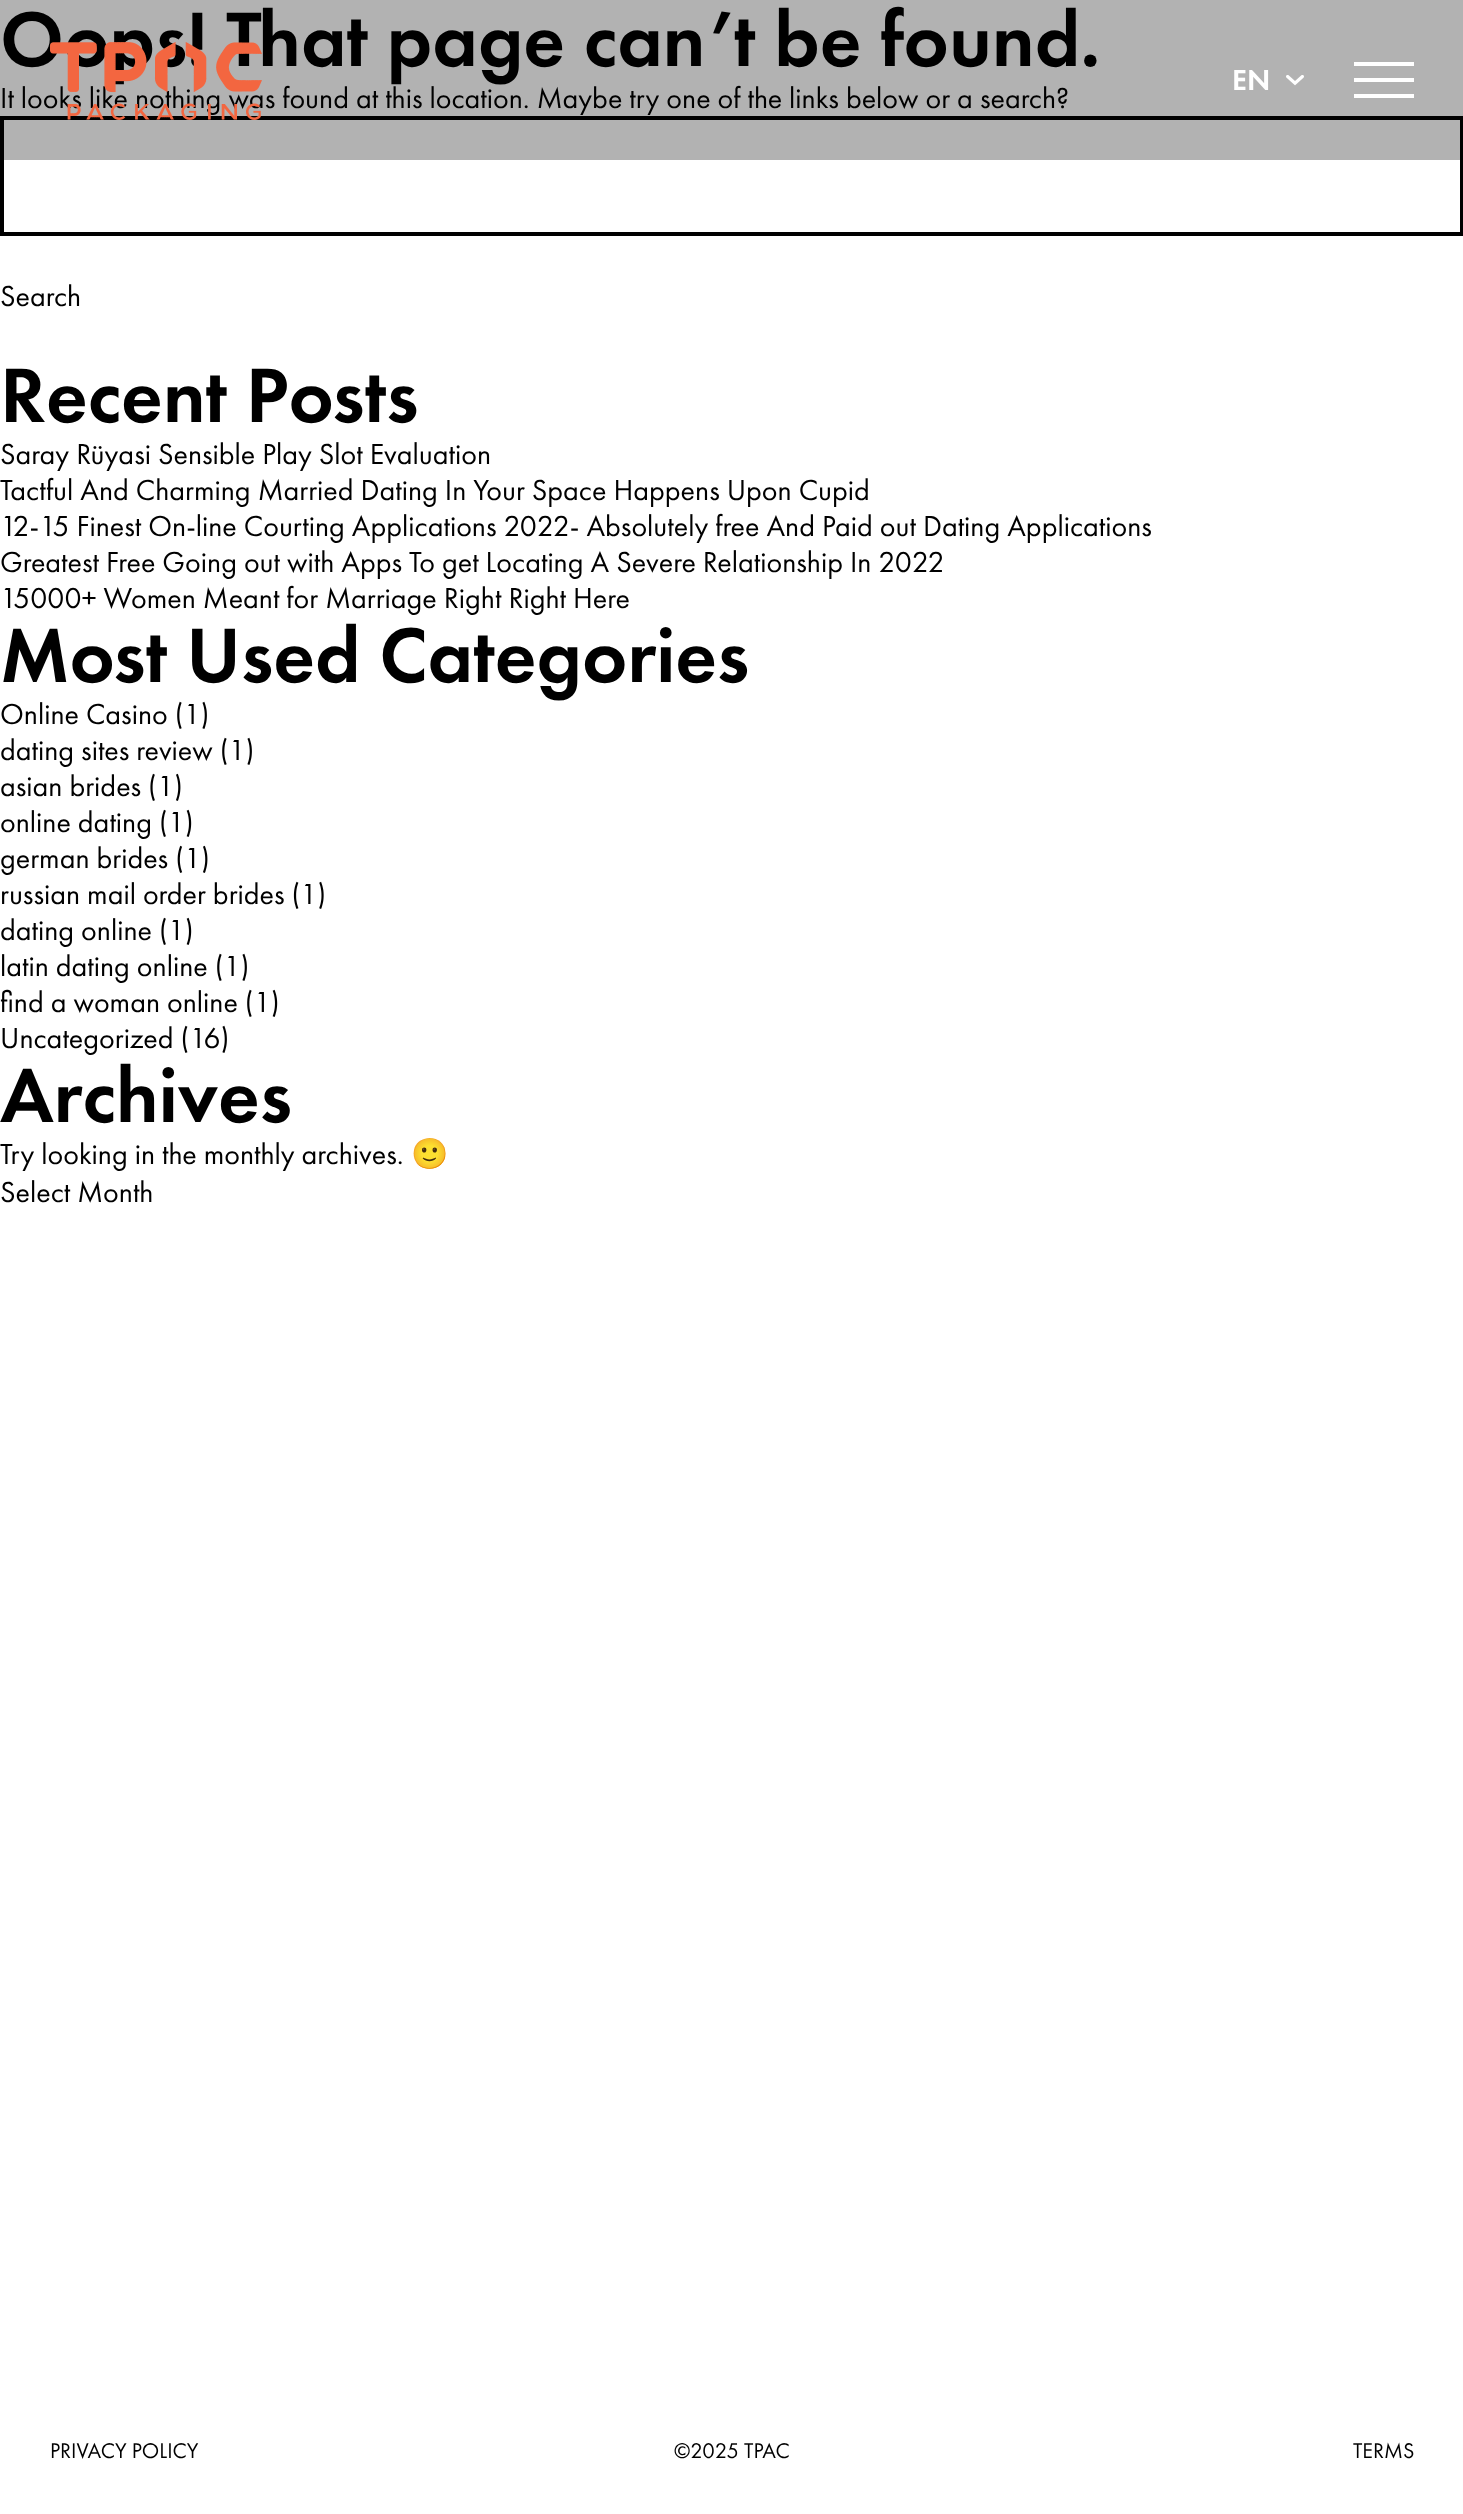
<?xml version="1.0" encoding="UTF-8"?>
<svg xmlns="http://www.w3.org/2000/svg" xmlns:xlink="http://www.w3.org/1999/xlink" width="1463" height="2514">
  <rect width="100%" height="100%" fill="#ffffff" />
  <rect x="2" y="118" width="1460" height="116" fill="none" stroke="#000000" stroke-width="4" />
  <text x="0" y="66" style="font-family: Futura PT; font-size: 80px; font-weight: 500; fill: #000000">Oops! That page can’t be found.</text>
  <text x="0" y="108" style="font-family: Futura PT; font-size: 30px; fill: #000000">It looks like nothing was found at this location. Maybe try one of the links below or a search?</text>
  <text x="0" y="306" style="font-family: Futura PT; font-size: 30px; fill: #000000">Search</text>
  <text x="0" y="422" style="font-family: Futura PT; font-size: 80px; font-weight: 500; fill: #000000">Recent Posts</text>
  <text x="0" y="464" style="font-family: Futura PT; font-size: 30px; fill: #000000">Saray Rüyasi Sensible Play Slot Evaluation</text>
  <text x="0" y="500" style="font-family: Futura PT; font-size: 30px; fill: #000000">Tactful And Charming Married Dating In Your Space Happens Upon Cupid</text>
  <text x="0" y="536" style="font-family: Futura PT; font-size: 30px; fill: #000000">12-15 Finest On-line Courting Applications 2022- Absolutely free And Paid out Dating Applications</text>
  <text x="0" y="572" style="font-family: Futura PT; font-size: 30px; fill: #000000">Greatest Free Going out with Apps To get Locating A Severe Relationship In 2022</text>
  <text x="0" y="608" style="font-family: Futura PT; font-size: 30px; fill: #000000">15000+ Women Meant for Marriage Right Right Here</text>
  <text x="0" y="682" style="font-family: Futura PT; font-size: 80px; font-weight: 500; fill: #000000">Most Used Categories</text>
  <text x="0" y="724" style="font-family: Futura PT; font-size: 30px; fill: #000000">Online Casino (1)</text>
  <text x="0" y="760" style="font-family: Futura PT; font-size: 30px; fill: #000000">dating sites review (1)</text>
  <text x="0" y="796" style="font-family: Futura PT; font-size: 30px; fill: #000000">asian brides (1)</text>
  <text x="0" y="832" style="font-family: Futura PT; font-size: 30px; fill: #000000">online dating (1)</text>
  <text x="0" y="868" style="font-family: Futura PT; font-size: 30px; fill: #000000">german brides (1)</text>
  <text x="0" y="904" style="font-family: Futura PT; font-size: 30px; fill: #000000">russian mail order brides (1)</text>
  <text x="0" y="940" style="font-family: Futura PT; font-size: 30px; fill: #000000">dating online (1)</text>
  <text x="0" y="976" style="font-family: Futura PT; font-size: 30px; fill: #000000">latin dating online (1)</text>
  <text x="0" y="1012" style="font-family: Futura PT; font-size: 30px; fill: #000000">find a woman online (1)</text>
  <text x="0" y="1048" style="font-family: Futura PT; font-size: 30px; fill: #000000">Uncategorized (16)</text>
  <text x="0" y="1122" style="font-family: Futura PT; font-size: 80px; font-weight: 500; fill: #000000">Archives</text>
  <text x="0" y="1164" style="font-family: Futura PT; font-size: 30px; fill: #000000">Try looking in the monthly archives.</text>
  <text x="411" y="1164" style="font-family: Noto Color Emoji; font-size: 30px; fill: #000000">🙂</text>
  <text x="0" y="1202" style="font-family: Futura PT; font-size: 30px; fill: #000000">Select Month</text>
  <rect width="1463" height="160" fill="#000000" fill-opacity="0.3" />
  <image x="50" y="42" width="212" height="78" xlink:href="image1.png" />
  <text x="1232" y="90" style="font-family: Futura PT; font-size: 30px; font-weight: 500; fill: #ffffff">EN</text>
  <image x="1286" y="75" width="18" height="11" xlink:href="image2.png" />
  <rect x="1354" y="78" width="60" height="4" fill="#ffffff" />
  <rect x="1354" y="62" width="60" height="4" fill="#ffffff" />
  <rect x="1354" y="94" width="60" height="4" fill="#ffffff" />
  <text x="50" y="2458" style="font-family: Futura PT; font-size: 22px; fill: #000000">PRIVACY POLICY</text>
  <text x="674" y="2458" style="font-family: Futura PT; font-size: 22px; fill: #000000">©2025 TPAC</text>
  <text x="1353" y="2458" style="font-family: Futura PT; font-size: 22px; fill: #000000">TERMS</text>
</svg>
